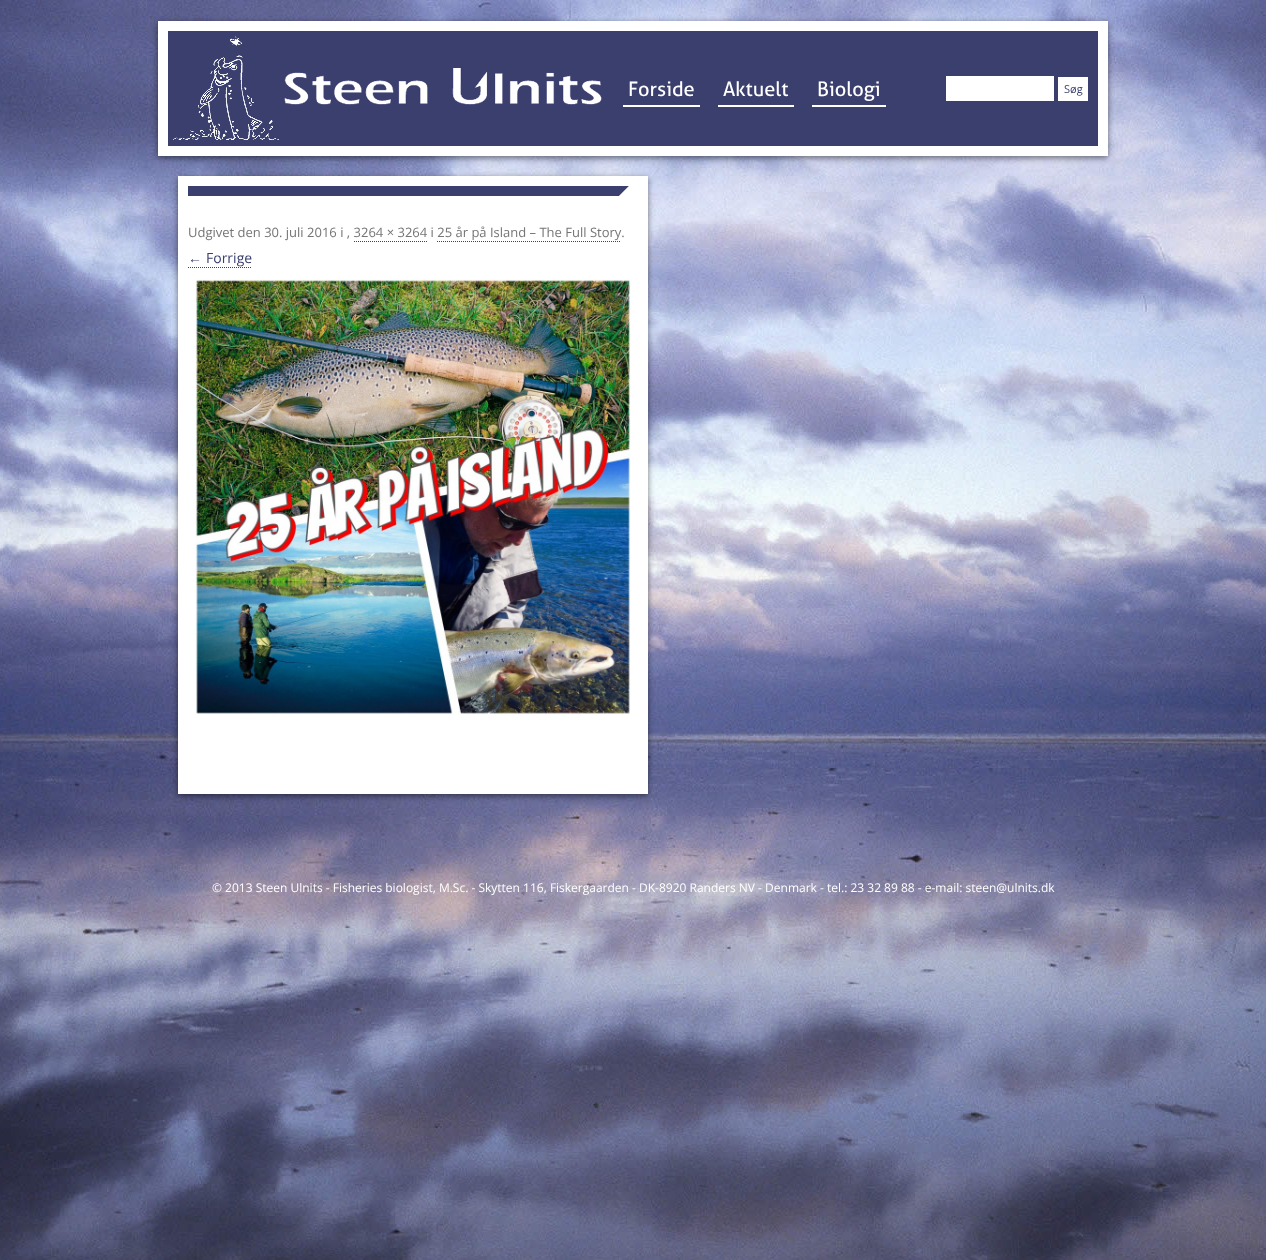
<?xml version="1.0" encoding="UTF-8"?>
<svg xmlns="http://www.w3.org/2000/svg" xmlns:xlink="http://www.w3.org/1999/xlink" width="1266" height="1260">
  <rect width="100%" height="100%" fill="#ffffff" />
  <image x="0" y="0" width="1266" height="1260" xlink:href="image1.png" />
  <rect x="158" y="23" width="950" height="135" fill="#000000" fill-opacity="0.5" filter="blur(3px)" />
  <rect x="163" y="26" width="940" height="125" fill="#3a3f6e" stroke="#ffffff" stroke-width="10" />
  <image x="173" y="36" width="429" height="104" xlink:href="image2.png" />
  <rect x="623" y="105" width="77" height="2" fill="#ffffff" />
  <rect x="718" y="105" width="76" height="2" fill="#ffffff" />
  <rect x="812" y="105" width="74" height="2" fill="#ffffff" />
  <rect x="946" y="76" width="108" height="25" fill="#ffffff" />
  <rect x="1058" y="77" width="30" height="24" fill="#ffffff" />
  <rect x="178" y="178" width="470" height="618" fill="#000000" fill-opacity="0.5" filter="blur(3px)" />
  <rect x="178" y="176" width="470" height="618" fill="#ffffff" />
  <rect x="188" y="186" width="441" height="10" fill="#3a3f6e" />
  <image x="619" y="186" width="19" height="10" xlink:href="image3.png" />
  <path d="M 354 241.5 h 73" fill="none" stroke="#393f6d" stroke-dasharray="1 1" />
  <path d="M 437 241.5 h 184" fill="none" stroke="#393f6d" stroke-dasharray="1 1" />
  <path d="M 188 267.5 h 64" fill="none" stroke="#393f6d" stroke-dasharray="1 1" />
  <image x="195" y="279" width="436" height="436" xlink:href="image4.png" />
  <text x="628" y="96" style="font-family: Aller; font-size: 20px; fill: #ffffff">Forside</text>
  <text x="723" y="96" style="font-family: Aller; font-size: 20px; fill: #ffffff">Aktuelt</text>
  <text x="817" y="96" style="font-family: Aller; font-size: 20px; fill: #ffffff">Biologi</text>
  <text x="1064" y="93" style="font-family: Open Sans; font-size: 11px; fill: #393f6d">Søg</text>
  <text x="188" y="237" style="font-family: Open Sans; font-size: 13px; fill: #757575">Udgivet den 30. juli 2016 i , 3264 × 3264 i 25 år på Island – The Full Story.</text>
  <text x="188" y="263" style="font-family: Liberation Sans; font-size: 14px; fill: #393f6d">←</text>
  <text x="206" y="263" style="font-family: Open Sans; font-size: 14px; fill: #393f6d">Forrige</text>
  <text x="212" y="892" style="font-family: Open Sans; font-size: 12px; fill: #ffffff">© 2013 Steen Ulnits - Fisheries biologist, M.Sc. - Skytten 116, Fiskergaarden - DK-8920 Randers NV - Denmark - tel.: 23 32 89 88 - e-mail: steen@ulnits.dk</text>
</svg>
